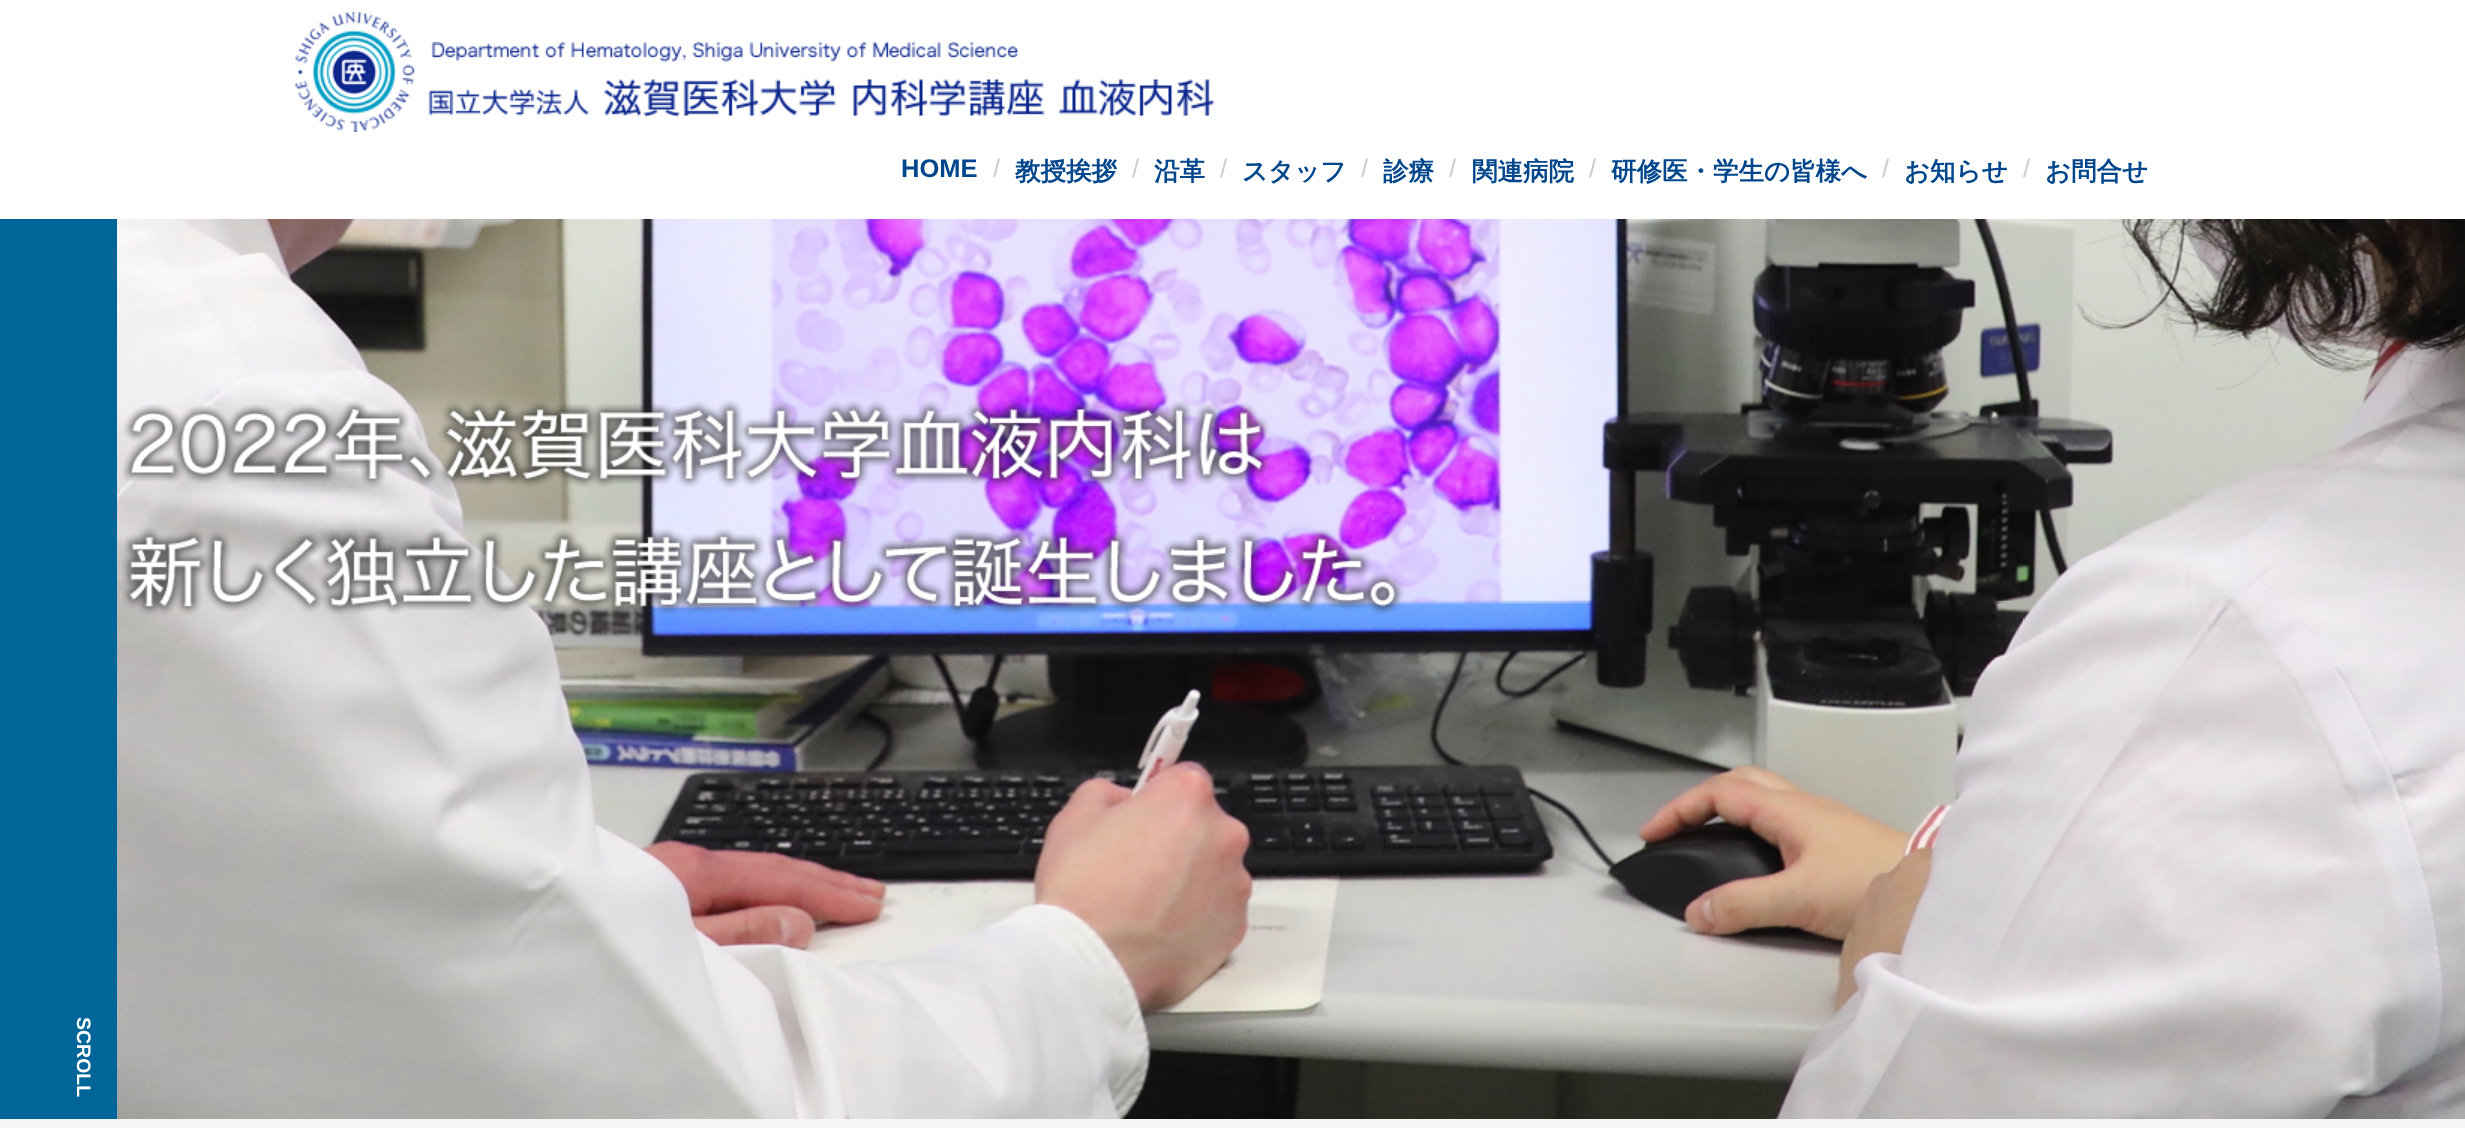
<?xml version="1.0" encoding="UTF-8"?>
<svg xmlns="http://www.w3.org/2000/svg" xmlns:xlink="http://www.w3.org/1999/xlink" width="2465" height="1128">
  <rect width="100%" height="100%" fill="#ffffff" />
  <image x="295" y="12" width="919" height="120" xlink:href="image1.png" />
  <rect y="219" width="117" height="900" fill="#006699" />
  <image x="117" y="219" width="2348" height="900" xlink:href="image2.png" />
  <image x="122" y="400" width="1282" height="215" xlink:href="image3.png" />
  <rect y="1119" width="2465" height="9" fill="#f5f5f5" />
  <text x="901" y="177" style="font-family: Liberation Sans; font-size: 25.5px; font-weight: bold; fill: #00468c">HOME</text>
  <text x="993" y="177" style="font-family: Liberation Sans; font-size: 25.5px; fill: #cccccc">/</text>
  <text x="1015" y="180" style="font-family: WenQuanYi Zen Hei; font-size: 25.5px; font-weight: bold; fill: #00468c">教授挨拶</text>
  <text x="1132" y="177" style="font-family: Liberation Sans; font-size: 25.5px; fill: #cccccc">/</text>
  <text x="1154" y="180" style="font-family: WenQuanYi Zen Hei; font-size: 25.5px; font-weight: bold; fill: #00468c">沿革</text>
  <text x="1220" y="177" style="font-family: Liberation Sans; font-size: 25.5px; fill: #cccccc">/</text>
  <text x="1242" y="180" style="font-family: WenQuanYi Zen Hei; font-size: 25.5px; font-weight: bold; fill: #00468c">スタッフ</text>
  <text x="1361" y="177" style="font-family: Liberation Sans; font-size: 25.5px; fill: #cccccc">/</text>
  <text x="1383" y="180" style="font-family: WenQuanYi Zen Hei; font-size: 25.5px; font-weight: bold; fill: #00468c">診療</text>
  <text x="1449" y="177" style="font-family: Liberation Sans; font-size: 25.5px; fill: #cccccc">/</text>
  <text x="1472" y="180" style="font-family: WenQuanYi Zen Hei; font-size: 25.5px; font-weight: bold; fill: #00468c">関連病院</text>
  <text x="1589" y="177" style="font-family: Liberation Sans; font-size: 25.5px; fill: #cccccc">/</text>
  <text x="1611" y="180" style="font-family: WenQuanYi Zen Hei; font-size: 25.5px; font-weight: bold; fill: #00468c">研修医・学生の皆様へ</text>
  <text x="1882" y="177" style="font-family: Liberation Sans; font-size: 25.5px; fill: #cccccc">/</text>
  <text x="1904" y="180" style="font-family: WenQuanYi Zen Hei; font-size: 25.5px; font-weight: bold; fill: #00468c">お知らせ</text>
  <text x="2023" y="177" style="font-family: Liberation Sans; font-size: 25.5px; fill: #cccccc">/</text>
  <text x="2045" y="180" style="font-family: WenQuanYi Zen Hei; font-size: 25.5px; font-weight: bold; fill: #00468c">お問合せ</text>
  <text x="77" y="1017" transform="rotate(90 77 1017)" style="font-family: Liberation Sans; font-size: 19.5px; font-weight: bold; fill: #ffffff">SCROLL</text>
</svg>
